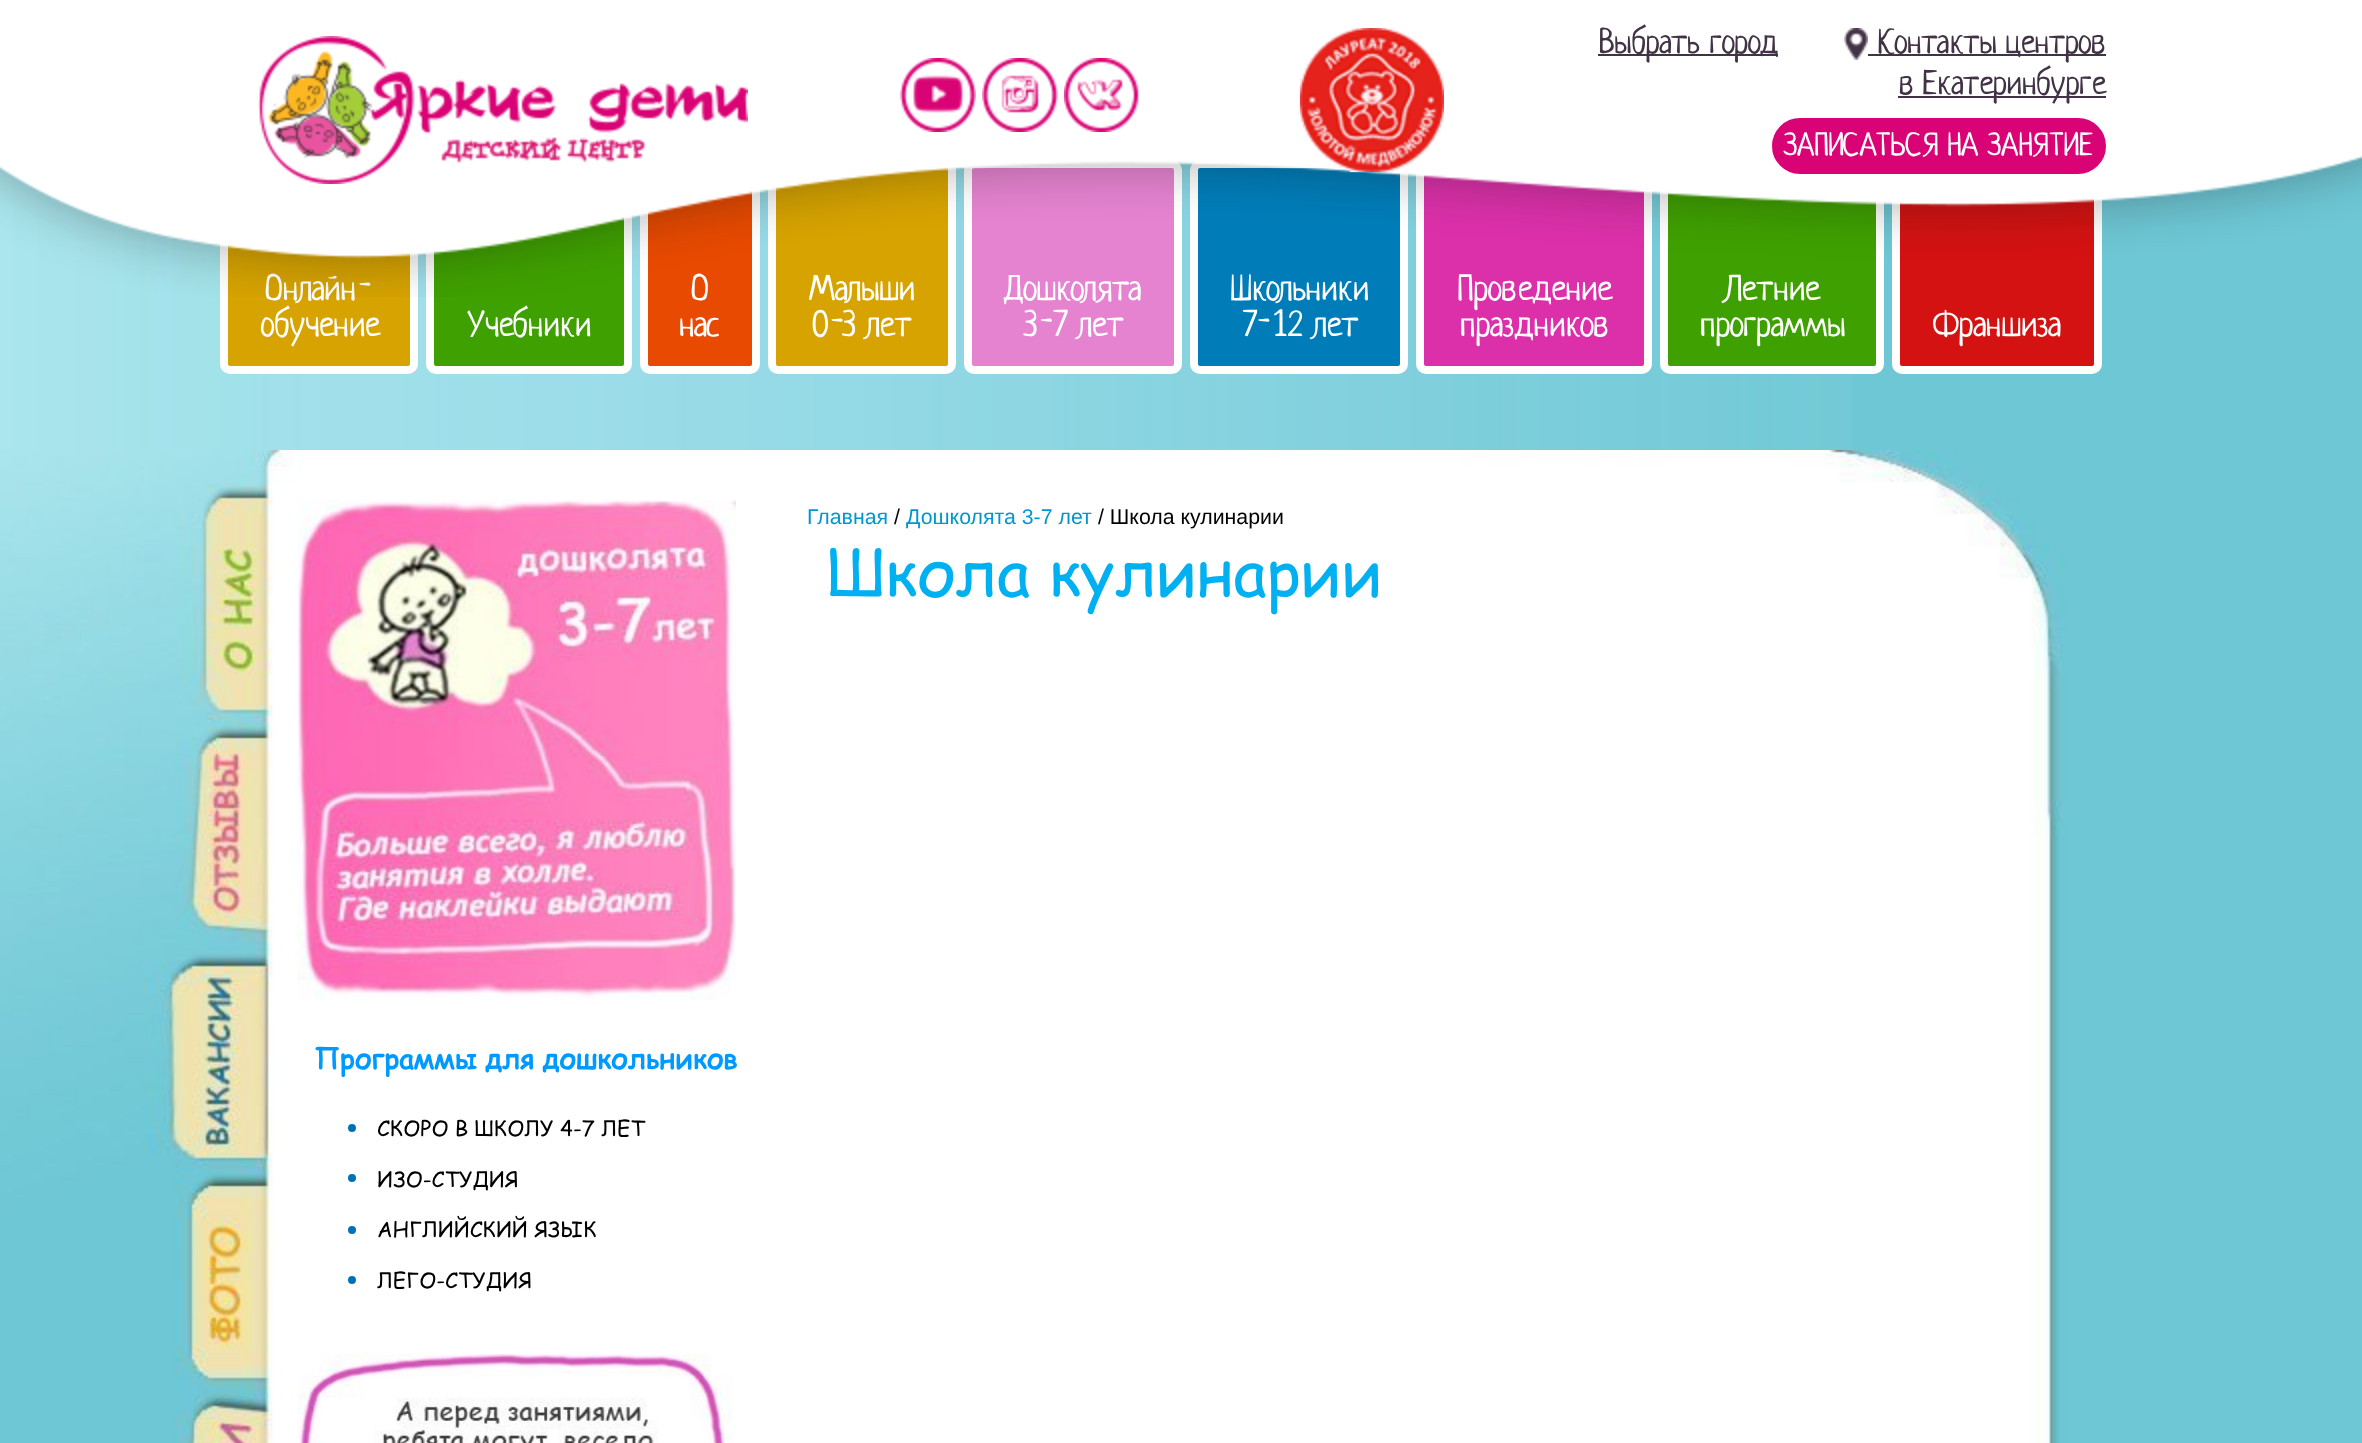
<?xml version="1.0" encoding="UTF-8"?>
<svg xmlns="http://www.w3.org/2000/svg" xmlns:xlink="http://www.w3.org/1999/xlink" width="2362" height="1443">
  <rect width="100%" height="100%" fill="#6ec7d5" />
  <image x="0" y="161" width="1852" height="289" xlink:href="image1.png" />
  <rect x="224" y="164" width="190" height="206" rx="6" fill="#d6a300" stroke="#ffffff" stroke-width="8" />
  <rect x="430" y="164" width="198" height="206" rx="6" fill="#3fa101" stroke="#ffffff" stroke-width="8" />
  <rect x="644" y="164" width="112" height="206" rx="6" fill="#e84a01" stroke="#ffffff" stroke-width="8" />
  <rect x="772" y="164" width="180" height="206" rx="6" fill="#d6a300" stroke="#ffffff" stroke-width="8" />
  <rect x="968" y="164" width="210" height="206" rx="6" fill="#e583d0" stroke="#ffffff" stroke-width="8" />
  <rect x="1194" y="164" width="210" height="206" rx="6" fill="#007db9" stroke="#ffffff" stroke-width="8" />
  <rect x="1420" y="164" width="228" height="206" rx="6" fill="#dc30aa" stroke="#ffffff" stroke-width="8" />
  <rect x="1664" y="164" width="216" height="206" rx="6" fill="#3fa101" stroke="#ffffff" stroke-width="8" />
  <rect x="1896" y="164" width="202" height="206" rx="6" fill="#d51212" stroke="#ffffff" stroke-width="8" />
  <image x="0" y="450" width="144" height="993" xlink:href="image9.png" />
  <image x="144" y="450" width="1933" height="993" xlink:href="image10.png" />
  <image x="298" y="500" width="438" height="500" xlink:href="image11.png" />
  <circle cx="352" cy="1128" r="4" fill="#0170b7" />
  <circle cx="352" cy="1178" r="4" fill="#0170b7" />
  <circle cx="352" cy="1230" r="4" fill="#0170b7" />
  <circle cx="352" cy="1280" r="4" fill="#0170b7" />
  <image x="298" y="1354" width="435" height="89" xlink:href="image12.png" />
  <text x="265" y="300" style="font-family: Neucha; font-size: 36px; fill: #ffffff">Онлайн-</text>
  <text x="260" y="336" style="font-family: Neucha; font-size: 36px; fill: #ffffff">обучение</text>
  <text x="467" y="336" style="font-family: Neucha; font-size: 36px; fill: #ffffff">Учебники</text>
  <text x="691" y="300" style="font-family: Neucha; font-size: 36px; fill: #ffffff">О</text>
  <text x="679" y="336" style="font-family: Neucha; font-size: 36px; fill: #ffffff">нас</text>
  <text x="808" y="300" style="font-family: Neucha; font-size: 36px; fill: #ffffff">Малыши</text>
  <text x="812" y="336" style="font-family: Neucha; font-size: 36px; fill: #ffffff">0-3 лет</text>
  <text x="1003" y="300" style="font-family: Neucha; font-size: 36px; fill: #ffffff">Дошколята</text>
  <text x="1022" y="336" style="font-family: Neucha; font-size: 36px; fill: #ffffff">3-7 лет</text>
  <text x="1230" y="300" style="font-family: Neucha; font-size: 36px; fill: #ffffff">Школьники</text>
  <text x="1242" y="336" style="font-family: Neucha; font-size: 36px; fill: #ffffff">7-12 лет</text>
  <text x="1457" y="300" style="font-family: Neucha; font-size: 36px; fill: #ffffff">Проведение</text>
  <text x="1460" y="336" style="font-family: Neucha; font-size: 36px; fill: #ffffff">праздников</text>
  <text x="1724" y="300" style="font-family: Neucha; font-size: 36px; fill: #ffffff">Летние</text>
  <image x="0" y="0" width="2362" height="297" xlink:href="image2.png" />
  <rect x="1598" y="54" width="180" height="2" fill="#423245" />
  <text x="1599" y="53" style="font-family: Neucha; font-size: 34px; fill: #423245">Выбрать город</text>
  <rect x="1775" y="121" width="328" height="50" rx="25" fill="#d90375" stroke="#d90375" stroke-width="6" />
  <text x="1783" y="155" style="font-family: Neucha; font-size: 32px; fill: #ffffff">ЗАПИСАТЬСЯ НА ЗАНЯТИЕ</text>
  <rect x="1898" y="96" width="208" height="2" fill="#423245" />
  <text x="1899" y="94" style="font-family: Neucha; font-size: 34px; fill: #423245">в Екатеринбурге</text>
  <rect x="1868" y="54" width="238" height="2" fill="#423245" />
  <text x="1878" y="53" style="font-family: Neucha; font-size: 34px; fill: #423245">Контакты центров</text>
  <image x="1844" y="28" width="24" height="32" xlink:href="image8.png" />
  <image x="1300" y="28" width="144" height="144" xlink:href="image7.png" />
  <image x="1064" y="58" width="75" height="74" xlink:href="image6.png" />
  <image x="982" y="58" width="76" height="74" xlink:href="image5.png" />
  <image x="900" y="58" width="76" height="74" xlink:href="image4.png" />
  <image x="258" y="36" width="490" height="148" xlink:href="image3.png" />
  <text x="1700" y="336" style="font-family: Neucha; font-size: 36px; fill: #ffffff">программы</text>
  <text x="1933" y="336" style="font-family: Neucha; font-size: 36px; fill: #ffffff">Франшиза</text>
  <text x="807" y="524" style="font-family: Liberation Sans; font-size: 21.3px; fill: #0097cf">Главная</text>
  <text x="894" y="524" style="font-family: Liberation Sans; font-size: 21.3px; fill: #000000">/</text>
  <text x="906" y="524" style="font-family: Liberation Sans; font-size: 21.3px; fill: #0097cf">Дошколята 3-7 лет</text>
  <text x="1098" y="524" style="font-family: Liberation Sans; font-size: 21.3px; fill: #000000">/ Школа кулинарии</text>
  <text x="827" y="596" style="font-family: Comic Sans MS; font-size: 64.5px; fill: #00b0f0">Школа кулинарии</text>
  <text x="314" y="1069" style="font-family: Comic Sans MS; font-size: 28px; font-weight: bold; fill: #0099ff">Программы для дошкольников</text>
  <text x="377" y="1136" style="font-family: Comic Sans MS; font-size: 21.3px; fill: #000000">СКОРО В ШКОЛУ 4-7 ЛЕТ</text>
  <text x="377" y="1187" style="font-family: Comic Sans MS; font-size: 21.3px; fill: #000000">ИЗО-СТУДИЯ</text>
  <text x="377" y="1237" style="font-family: Comic Sans MS; font-size: 21.3px; fill: #000000">АНГЛИЙСКИЙ ЯЗЫК</text>
  <text x="377" y="1288" style="font-family: Comic Sans MS; font-size: 21.3px; fill: #000000">ЛЕГО-СТУДИЯ</text>
</svg>
